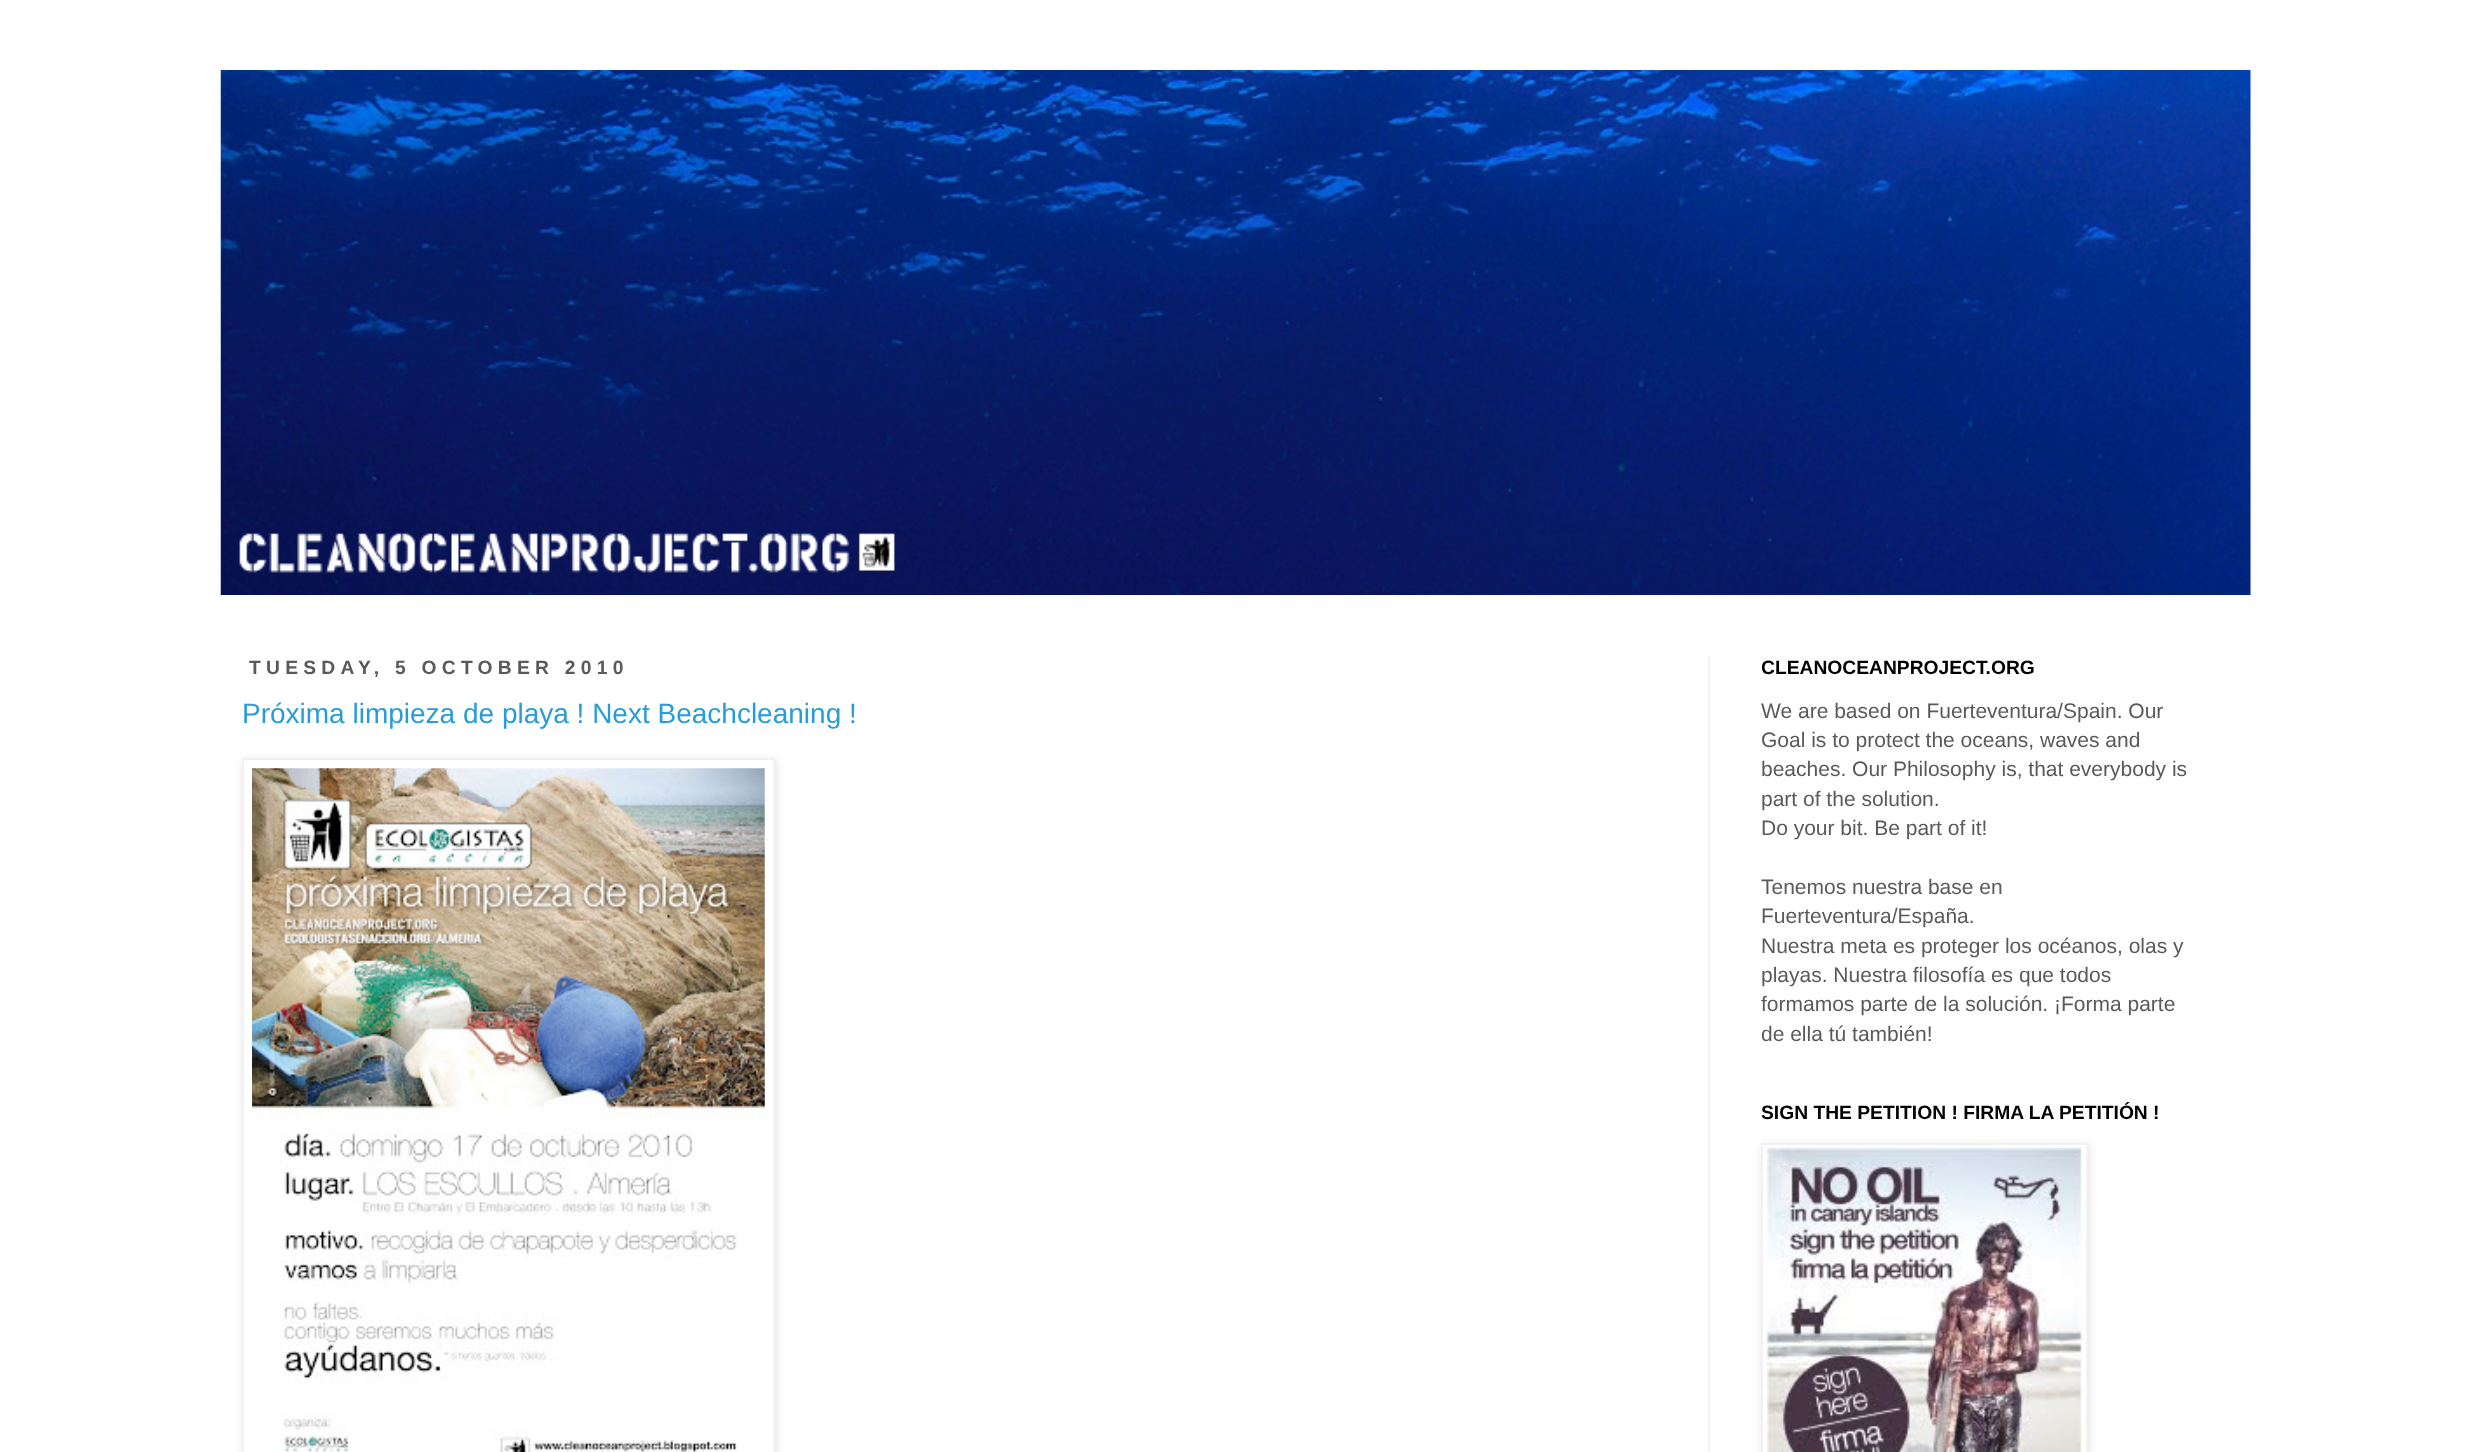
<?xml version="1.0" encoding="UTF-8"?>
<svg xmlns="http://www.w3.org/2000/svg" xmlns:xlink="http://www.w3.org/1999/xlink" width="2471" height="1452">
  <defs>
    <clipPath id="clip1"><path d="M 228 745 h 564 v 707 h -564 z m 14 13 h 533 v 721 h -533 z" clip-rule="evenodd" /></clipPath>
  </defs>
  <rect width="100%" height="100%" fill="#ffffff" />
  <image x="220" y="70" width="2031" height="525" xlink:href="image1.png" />
  <rect x="1708" y="656" width="2" height="796" fill="#f2f2f2" />
  <g clip-path="url(#clip1)">
    <rect x="243" y="760" width="534" height="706" fill="#000000" fill-opacity="0.1" filter="blur(4.5px)" />
  </g>
  <rect x="243" y="759" width="531" height="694" fill="none" stroke="#f2f2f2" stroke-width="2" />
  <image x="252" y="768" width="513" height="684" xlink:href="image2.png" />
  <rect x="1762" y="1145" width="328" height="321" fill="#000000" fill-opacity="0.1" filter="blur(4.5px)" />
  <rect x="1762" y="1144" width="325" height="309" fill="#ffffff" stroke="#f2f2f2" stroke-width="2" />
  <image x="1765" y="1148" width="318" height="304" xlink:href="image3.png" />
  <text x="249" y="674" style="font-family: Liberation Sans; font-size: 19.25px; font-weight: bold; letter-spacing: 5.25px; fill: #5a5a5a">TUESDAY, 5 OCTOBER 2010</text>
  <text x="242" y="723" style="font-family: Liberation Sans; font-size: 28px; fill: #279cd7">Próxima limpieza de playa ! Next Beachcleaning !</text>
  <text x="1761" y="674" style="font-family: Liberation Sans; font-size: 19.25px; font-weight: bold; fill: #000000">CLEANOCEANPROJECT.ORG</text>
  <text x="1761" y="718" style="font-family: Liberation Sans; font-size: 21px; fill: #5a5a5a">We are based on Fuerteventura/Spain. Our</text>
  <text x="1761" y="747" style="font-family: Liberation Sans; font-size: 21px; fill: #5a5a5a">Goal is to protect the oceans, waves and</text>
  <text x="1761" y="776" style="font-family: Liberation Sans; font-size: 21px; fill: #5a5a5a">beaches. Our Philosophy is, that everybody is</text>
  <text x="1761" y="806" style="font-family: Liberation Sans; font-size: 21px; fill: #5a5a5a">part of the solution.</text>
  <text x="1761" y="835" style="font-family: Liberation Sans; font-size: 21px; fill: #5a5a5a">Do your bit. Be part of it!</text>
  <text x="1761" y="894" style="font-family: Liberation Sans; font-size: 21px; fill: #5a5a5a">Tenemos nuestra base en</text>
  <text x="1761" y="923" style="font-family: Liberation Sans; font-size: 21px; fill: #5a5a5a">Fuerteventura/España.</text>
  <text x="1761" y="953" style="font-family: Liberation Sans; font-size: 21px; fill: #5a5a5a">Nuestra meta es proteger los océanos, olas y</text>
  <text x="1761" y="982" style="font-family: Liberation Sans; font-size: 21px; fill: #5a5a5a">playas. Nuestra filosofía es que todos</text>
  <text x="1761" y="1011" style="font-family: Liberation Sans; font-size: 21px; fill: #5a5a5a">formamos parte de la solución. ¡Forma parte</text>
  <text x="1761" y="1041" style="font-family: Liberation Sans; font-size: 21px; fill: #5a5a5a">de ella tú también!</text>
  <text x="1761" y="1119" style="font-family: Liberation Sans; font-size: 19.25px; font-weight: bold; fill: #000000">SIGN THE PETITION ! FIRMA LA PETITIÓN !</text>
</svg>
